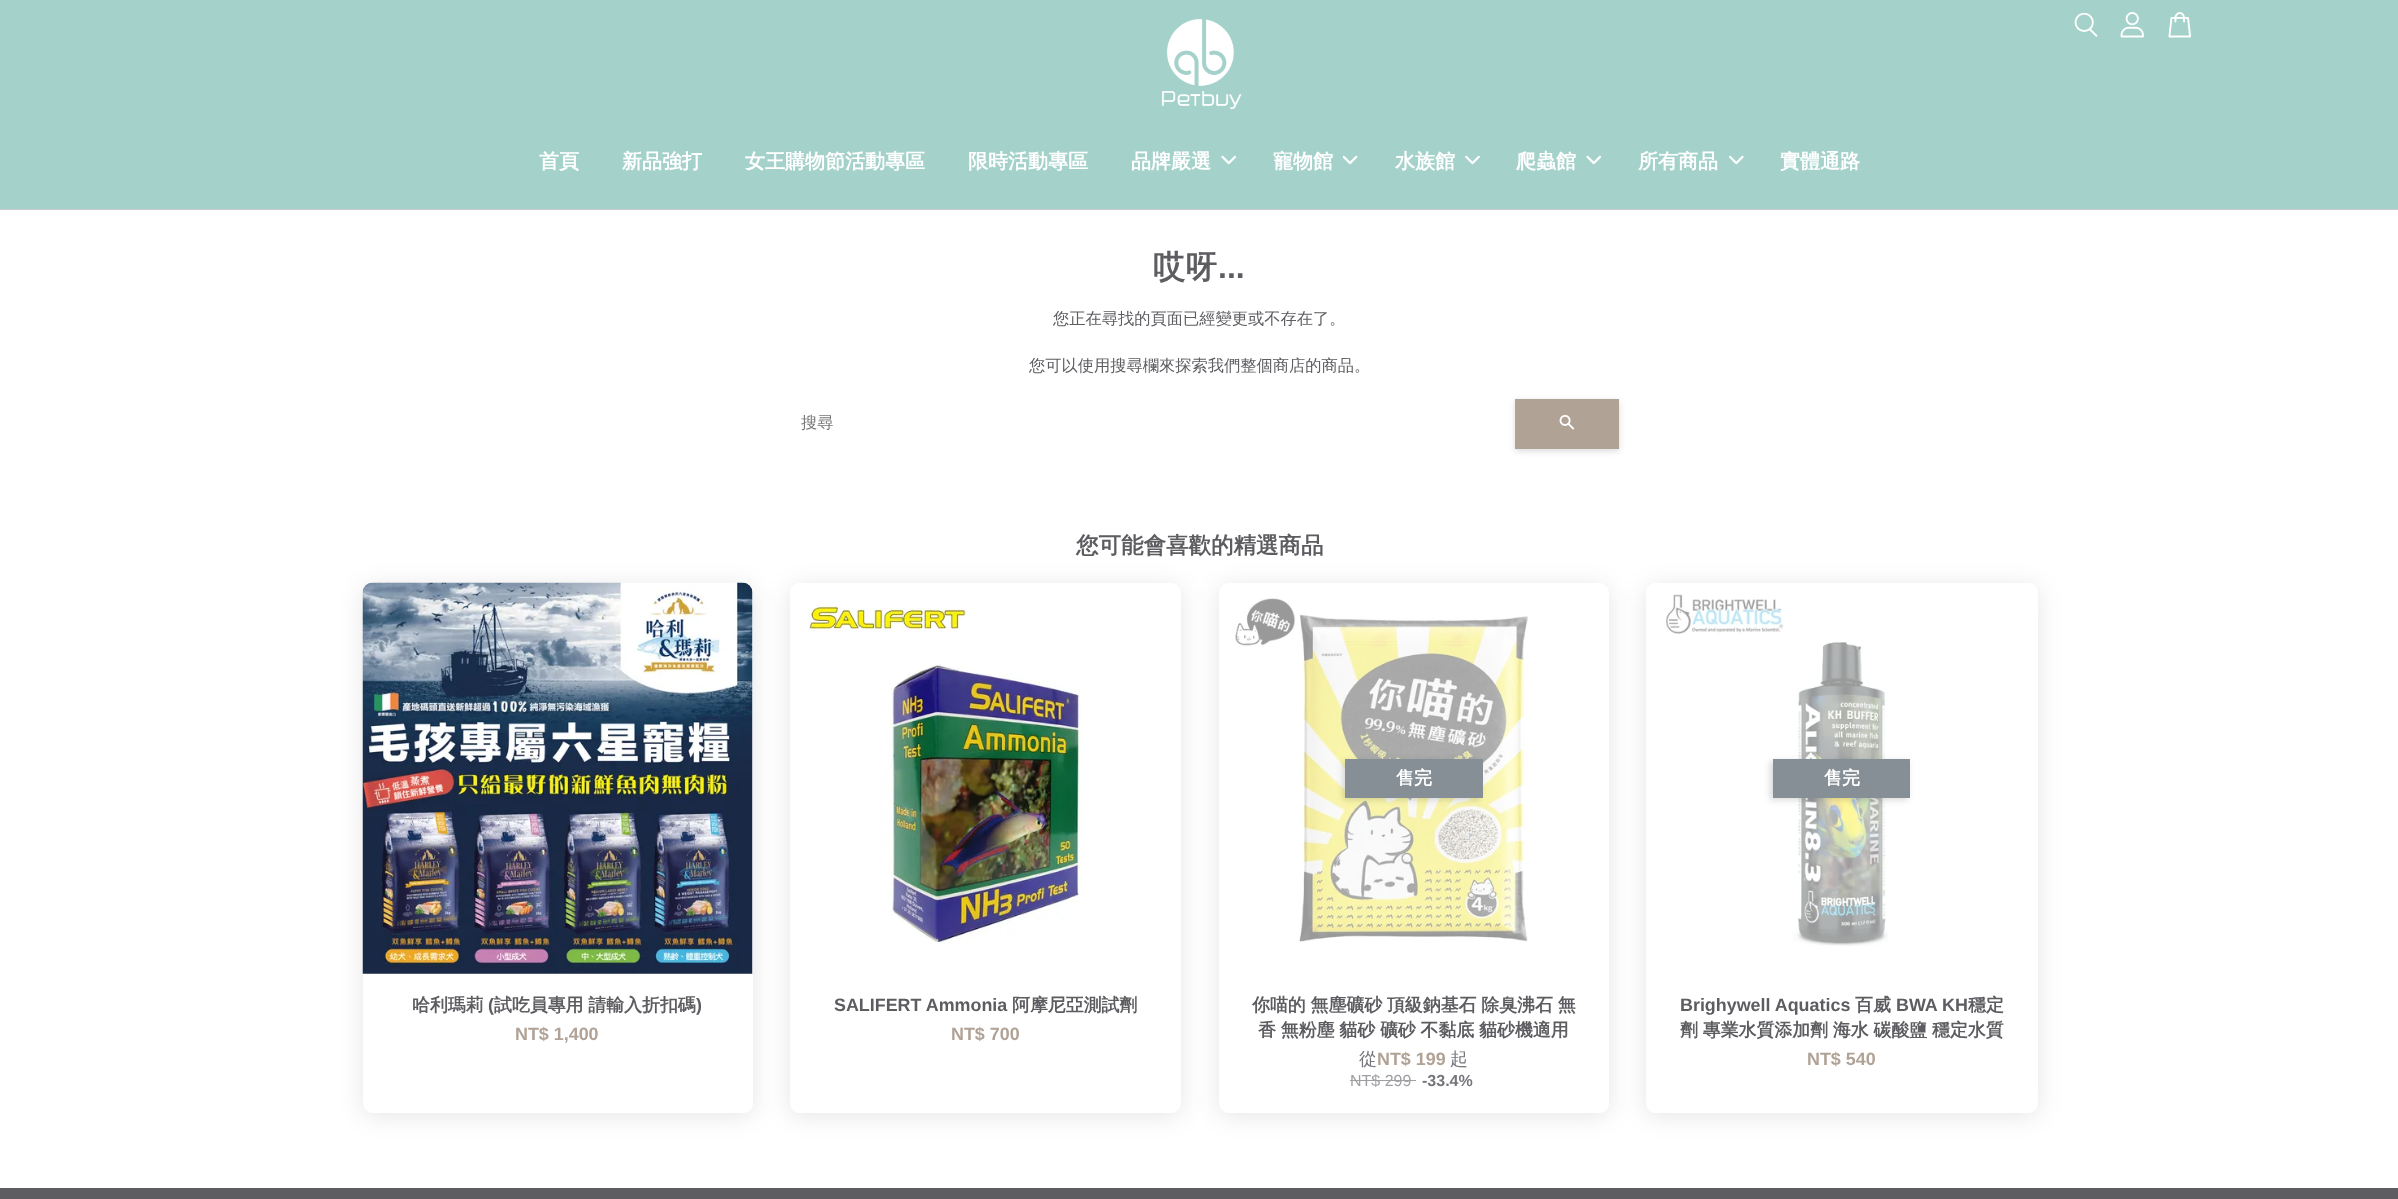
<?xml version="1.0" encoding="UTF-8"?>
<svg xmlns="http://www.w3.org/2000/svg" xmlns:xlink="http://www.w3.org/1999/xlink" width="2398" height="1199">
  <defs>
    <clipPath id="clip1"><path d="M 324 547 h 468 v 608 h -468 z m 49 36 h 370 c 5.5 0 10 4.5 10 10 v 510 c 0 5.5 -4.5 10 -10 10 h -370 c -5.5 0 -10 -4.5 -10 -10 v -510 c 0 -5.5 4.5 -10 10 -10 z" clip-rule="evenodd" /></clipPath>
    <clipPath id="clip2"><path d="M 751 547 h 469 v 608 h -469 z m 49 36 h 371 c 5.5 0 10 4.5 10 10 v 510 c 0 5.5 -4.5 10 -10 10 h -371 c -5.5 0 -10 -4.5 -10 -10 v -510 c 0 -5.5 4.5 -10 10 -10 z" clip-rule="evenodd" /></clipPath>
    <clipPath id="clip3"><path d="M 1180 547 h 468 v 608 h -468 z m 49 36 h 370 c 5.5 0 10 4.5 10 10 v 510 c 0 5.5 -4.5 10 -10 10 h -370 c -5.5 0 -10 -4.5 -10 -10 v -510 c 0 -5.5 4.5 -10 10 -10 z" clip-rule="evenodd" /></clipPath>
    <clipPath id="clip4"><path d="M 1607 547 h 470 v 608 h -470 z m 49 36 h 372 c 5.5 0 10 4.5 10 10 v 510 c 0 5.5 -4.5 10 -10 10 h -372 c -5.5 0 -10 -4.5 -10 -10 v -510 c 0 -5.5 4.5 -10 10 -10 z" clip-rule="evenodd" /></clipPath>
  </defs>
  <rect width="100%" height="100%" fill="#ffffff" />
  <rect width="2398" height="209" fill="#a4d2ca" />
  <rect y="209" width="2398" height="1" fill="#cccccc" />
  <image x="1161" y="19" width="81" height="90" xlink:href="image1.png" />
  <image x="2074" y="12" width="24" height="25" xlink:href="image2.png" />
  <image x="2120" y="12" width="24" height="26" xlink:href="image3.png" />
  <image x="2168" y="12" width="23" height="26" xlink:href="image4.png" />
  <image x="1221" y="155" width="15" height="10" xlink:href="image5.png" />
  <image x="1343" y="155" width="15" height="10" xlink:href="image6.png" />
  <image x="1465" y="155" width="15" height="10" xlink:href="image7.png" />
  <image x="1586" y="155" width="15" height="10" xlink:href="image5.png" />
  <image x="1729" y="155" width="15" height="10" xlink:href="image8.png" />
  <rect x="1515" y="401" width="104" height="50" fill="#000000" fill-opacity="0.15" filter="blur(3px)" />
  <rect x="1515" y="399" width="104" height="50" fill="#b1a296" />
  <image x="1559" y="415" width="16" height="15" xlink:href="image9.png" />
  <g clip-path="url(#clip1)">
    <rect x="363" y="586" width="390" height="530" rx="10" fill="#000000" fill-opacity="0.1" filter="blur(12.5px)" />
  </g>
  <image x="362" y="582" width="391" height="392" xlink:href="image10.png" />
  <g clip-path="url(#clip2)">
    <rect x="790" y="586" width="391" height="530" rx="10" fill="#000000" fill-opacity="0.1" filter="blur(12.5px)" />
  </g>
  <image x="809" y="602" width="275" height="342" xlink:href="image11.png" />
  <g clip-path="url(#clip3)">
    <rect x="1219" y="586" width="390" height="530" rx="10" fill="#000000" fill-opacity="0.1" filter="blur(12.5px)" />
  </g>
  <image x="1235" y="598" width="293" height="344" xlink:href="image12.png" />
  <rect x="1343" y="761" width="137" height="39" fill="#000000" fill-opacity="0.15" filter="blur(3px)" />
  <rect x="1345" y="759" width="138" height="39" fill="#868e96" />
  <rect x="1350" y="1080" width="66" height="1" fill="#9f9ea3" />
  <g clip-path="url(#clip4)">
    <rect x="1646" y="586" width="392" height="530" rx="10" fill="#000000" fill-opacity="0.1" filter="blur(12.5px)" />
  </g>
  <image x="1666" y="594" width="222" height="352" xlink:href="image13.png" />
  <rect x="1770" y="761" width="138" height="39" fill="#000000" fill-opacity="0.15" filter="blur(3px)" />
  <rect x="1773" y="759" width="137" height="39" fill="#868e96" />
  <rect y="1188" width="2398" height="11" fill="#5d5c61" />
  <text x="539" y="168" style="font-family: WenQuanYi Zen Hei; font-size: 20px; font-weight: bold; fill: #ffffff">首頁</text>
  <text x="622" y="168" style="font-family: WenQuanYi Zen Hei; font-size: 20px; font-weight: bold; fill: #ffffff">新品強打</text>
  <text x="745" y="168" style="font-family: WenQuanYi Zen Hei; font-size: 20px; font-weight: bold; fill: #ffffff">女王購物節活動專區</text>
  <text x="968" y="168" style="font-family: WenQuanYi Zen Hei; font-size: 20px; font-weight: bold; fill: #ffffff">限時活動專區</text>
  <text x="1131" y="168" style="font-family: WenQuanYi Zen Hei; font-size: 20px; font-weight: bold; fill: #ffffff">品牌嚴選</text>
  <text x="1273" y="168" style="font-family: WenQuanYi Zen Hei; font-size: 20px; font-weight: bold; fill: #ffffff">寵物館</text>
  <text x="1395" y="168" style="font-family: WenQuanYi Zen Hei; font-size: 20px; font-weight: bold; fill: #ffffff">水族館</text>
  <text x="1516" y="168" style="font-family: WenQuanYi Zen Hei; font-size: 20px; font-weight: bold; fill: #ffffff">爬蟲館</text>
  <text x="1638" y="168" style="font-family: WenQuanYi Zen Hei; font-size: 20px; font-weight: bold; fill: #ffffff">所有商品</text>
  <text x="1780" y="168" style="font-family: WenQuanYi Zen Hei; font-size: 20px; font-weight: bold; fill: #ffffff">實體通路</text>
  <text x="1153" y="278" style="font-family: WenQuanYi Zen Hei; font-size: 32px; font-weight: bold; fill: #5d5c61">哎呀</text>
  <text x="1218" y="278" style="font-family: Liberation Sans; font-size: 32px; font-weight: bold; fill: #5d5c61">...</text>
  <text x="1053" y="324" style="font-family: WenQuanYi Zen Hei; font-size: 16.25px; font-weight: 500; fill: #5d5c61">您正在尋找的頁面已經變更或不存在了。</text>
  <text x="1029" y="371" style="font-family: WenQuanYi Zen Hei; font-size: 16.25px; font-weight: 500; fill: #5d5c61">您可以使用搜尋欄來探索我們整個商店的商品。</text>
  <text x="801" y="428" style="font-family: WenQuanYi Zen Hei; font-size: 16.25px; font-weight: 500; fill: #757575">搜尋</text>
  <text x="1076" y="553" style="font-family: WenQuanYi Zen Hei; font-size: 22.5px; font-weight: bold; fill: #5d5c61">您可能會喜歡的精選商品</text>
  <text x="412" y="1011" style="font-family: WenQuanYi Zen Hei; font-size: 17.9px; font-weight: bold; fill: #5d5c61">哈利瑪莉</text>
  <text x="488" y="1011" style="font-family: Liberation Sans; font-size: 17.9px; font-weight: bold; fill: #5d5c61">(</text>
  <text x="494" y="1011" word-spacing="-0.5" style="font-family: WenQuanYi Zen Hei; font-size: 17.9px; font-weight: bold; fill: #5d5c61">試吃員專用 請輸入折扣碼</text>
  <text x="696" y="1011" style="font-family: Liberation Sans; font-size: 17.9px; font-weight: bold; fill: #5d5c61">)</text>
  <text x="515" y="1040" style="font-family: Liberation Sans; font-size: 17.9px; font-weight: bold; fill: #b1a296">NT$ 1,400</text>
  <text x="834" y="1011" style="font-family: Liberation Sans; font-size: 17.9px; font-weight: bold; fill: #5d5c61">SALIFERT Ammonia</text>
  <text x="1012" y="1011" style="font-family: WenQuanYi Zen Hei; font-size: 17.9px; font-weight: bold; fill: #5d5c61">阿摩尼亞測試劑</text>
  <text x="951" y="1040" style="font-family: Liberation Sans; font-size: 17.9px; font-weight: bold; fill: #b1a296">NT$ 700</text>
  <text x="1396" y="784" style="font-family: WenQuanYi Zen Hei; font-size: 18px; font-weight: bold; fill: #ffffff">售完</text>
  <text x="1252" y="1011" word-spacing="-0.5" style="font-family: WenQuanYi Zen Hei; font-size: 17.9px; font-weight: bold; fill: #5d5c61">你喵的 無塵礦砂 頂級鈉基石 除臭沸石 無</text>
  <text x="1258" y="1036" word-spacing="-0.5" style="font-family: WenQuanYi Zen Hei; font-size: 17.9px; font-weight: bold; fill: #5d5c61">香 無粉塵 貓砂 礦砂 不黏底 貓砂機適用</text>
  <text x="1359" y="1065" style="font-family: WenQuanYi Zen Hei; font-size: 17.9px; font-weight: 500; fill: #76757b">從</text>
  <text x="1377" y="1065" style="font-family: Liberation Sans; font-size: 17.9px; font-weight: bold; fill: #b1a296">NT$ 199</text>
  <text x="1450" y="1065" style="font-family: WenQuanYi Zen Hei; font-size: 17.9px; font-weight: 500; fill: #76757b">起</text>
  <text x="1350" y="1086" style="font-family: Liberation Sans; font-size: 16px; fill: #9f9ea3">NT$ 299</text>
  <text x="1422" y="1086" style="font-family: Liberation Sans; font-size: 16px; font-weight: bold; fill: #76757b">-33.4%</text>
  <text x="1824" y="784" style="font-family: WenQuanYi Zen Hei; font-size: 18px; font-weight: bold; fill: #ffffff">售完</text>
  <text x="1680" y="1011" style="font-family: Liberation Sans; font-size: 17.9px; font-weight: bold; fill: #5d5c61">Brighywell Aquatics</text>
  <text x="1855" y="1011" style="font-family: WenQuanYi Zen Hei; font-size: 17.9px; font-weight: bold; fill: #5d5c61">百威</text>
  <text x="1896" y="1011" style="font-family: Liberation Sans; font-size: 17.9px; font-weight: bold; fill: #5d5c61">BWA KH</text>
  <text x="1968" y="1011" style="font-family: WenQuanYi Zen Hei; font-size: 17.9px; font-weight: bold; fill: #5d5c61">穩定</text>
  <text x="1680" y="1036" word-spacing="-0.5" style="font-family: WenQuanYi Zen Hei; font-size: 17.9px; font-weight: bold; fill: #5d5c61">劑 專業水質添加劑 海水 碳酸鹽 穩定水質</text>
  <text x="1807" y="1065" style="font-family: Liberation Sans; font-size: 17.9px; font-weight: bold; fill: #b1a296">NT$ 540</text>
</svg>
